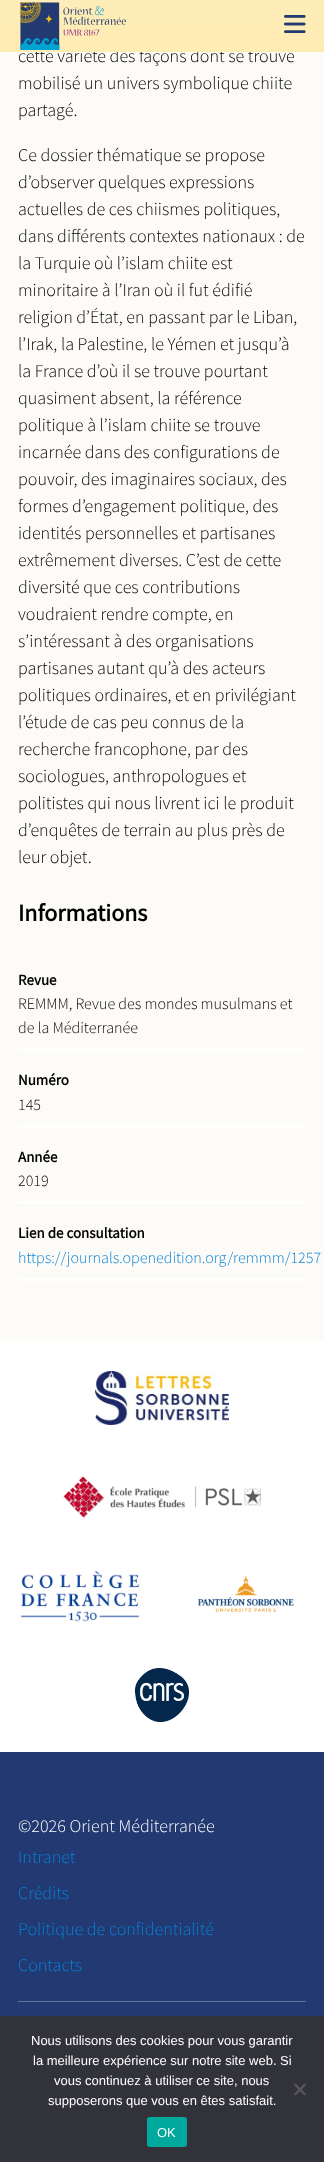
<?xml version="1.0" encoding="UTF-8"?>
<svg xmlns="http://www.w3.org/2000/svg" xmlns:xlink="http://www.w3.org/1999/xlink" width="324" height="2162">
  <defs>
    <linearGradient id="g1" gradientUnits="userSpaceOnUse" x1="162" y1="0" x2="162" y2="52"><stop offset="0" stop-color="#feedb9" /><stop offset="1" stop-color="#ffecb2" /></linearGradient>
  </defs>
  <rect width="100%" height="100%" fill="#fdfbf7" />
  <rect x="18" y="1048" width="288" height="3" fill="#ffffff" />
  <rect x="18" y="1125" width="288" height="3" fill="#ffffff" />
  <rect x="18" y="1201" width="288" height="3" fill="#ffffff" />
  <rect x="18" y="1278" width="288" height="3" fill="#ffffff" />
  <rect y="1341" width="324" height="411" fill="#ffffff" />
  <image x="95" y="1371" width="134" height="54" xlink:href="image3.png" />
  <image x="63" y="1476" width="198" height="42" xlink:href="image4.png" />
  <image x="20" y="1570" width="120" height="52" xlink:href="image5.png" />
  <image x="198" y="1575" width="96" height="37" xlink:href="image6.png" />
  <image x="135" y="1668" width="54" height="54" xlink:href="image7.png" />
  <rect y="1752" width="324" height="264" fill="#223971" />
  <rect x="18" y="2001" width="288" height="1" fill="#64749c" />
  <rect y="2016" width="324" height="146" fill="#32323a" />
  <path d="M 304.5 2083.5 l 1.5 1.5 l -10.5 10.5 l -1.5 -1.5 z" fill="#59595d" />
  <path d="M 294 2085 l 1.5 -1.5 l 10.5 10.5 l -1.5 1.5 z" fill="#59595d" />
  <rect x="147" y="2117" width="40" height="30" rx="3" fill="#00a99d" />
  <text x="18" y="62" style="font-family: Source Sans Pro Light; font-size: 18px; font-weight: 300; fill: #000000">cette variété des façons dont se trouve</text>
  <rect width="324" height="52" fill="url(#g1)" />
  <image x="20" y="2" width="106" height="48" xlink:href="image1.png" />
  <image x="284" y="15" width="22" height="18" xlink:href="image2.png" />
  <text x="18" y="89" style="font-family: Source Sans Pro Light; font-size: 18px; font-weight: 300; fill: #000000">mobilisé un univers symbolique chiite</text>
  <text x="18" y="116" style="font-family: Source Sans Pro Light; font-size: 18px; font-weight: 300; fill: #000000">partagé.</text>
  <text x="18" y="161" style="font-family: Source Sans Pro Light; font-size: 18px; font-weight: 300; fill: #000000">Ce dossier thématique se propose</text>
  <text x="18" y="188" style="font-family: Source Sans Pro Light; font-size: 18px; font-weight: 300; fill: #000000">d’observer quelques expressions</text>
  <text x="18" y="215" style="font-family: Source Sans Pro Light; font-size: 18px; font-weight: 300; fill: #000000">actuelles de ces chiismes politiques,</text>
  <text x="18" y="242" style="font-family: Source Sans Pro Light; font-size: 18px; font-weight: 300; fill: #000000">dans différents contextes nationaux : de</text>
  <text x="18" y="269" style="font-family: Source Sans Pro Light; font-size: 18px; font-weight: 300; fill: #000000">la Turquie où l’islam chiite est</text>
  <text x="18" y="296" style="font-family: Source Sans Pro Light; font-size: 18px; font-weight: 300; fill: #000000">minoritaire à l’Iran où il fut édifié</text>
  <text x="18" y="323" style="font-family: Source Sans Pro Light; font-size: 18px; font-weight: 300; fill: #000000">religion d’État, en passant par le Liban,</text>
  <text x="18" y="350" style="font-family: Source Sans Pro Light; font-size: 18px; font-weight: 300; fill: #000000">l’Irak, la Palestine, le Yémen et jusqu’à</text>
  <text x="18" y="377" style="font-family: Source Sans Pro Light; font-size: 18px; font-weight: 300; fill: #000000">la France d’où il se trouve pourtant</text>
  <text x="18" y="404" style="font-family: Source Sans Pro Light; font-size: 18px; font-weight: 300; fill: #000000">quasiment absent, la référence</text>
  <text x="18" y="431" style="font-family: Source Sans Pro Light; font-size: 18px; font-weight: 300; fill: #000000">politique à l’islam chiite se trouve</text>
  <text x="18" y="458" style="font-family: Source Sans Pro Light; font-size: 18px; font-weight: 300; fill: #000000">incarnée dans des configurations de</text>
  <text x="18" y="485" style="font-family: Source Sans Pro Light; font-size: 18px; font-weight: 300; fill: #000000">pouvoir, des imaginaires sociaux, des</text>
  <text x="18" y="512" style="font-family: Source Sans Pro Light; font-size: 18px; font-weight: 300; fill: #000000">formes d’engagement politique, des</text>
  <text x="18" y="539" style="font-family: Source Sans Pro Light; font-size: 18px; font-weight: 300; fill: #000000">identités personnelles et partisanes</text>
  <text x="18" y="566" style="font-family: Source Sans Pro Light; font-size: 18px; font-weight: 300; fill: #000000">extrêmement diverses. C’est de cette</text>
  <text x="18" y="593" style="font-family: Source Sans Pro Light; font-size: 18px; font-weight: 300; fill: #000000">diversité que ces contributions</text>
  <text x="18" y="620" style="font-family: Source Sans Pro Light; font-size: 18px; font-weight: 300; fill: #000000">voudraient rendre compte, en</text>
  <text x="18" y="647" style="font-family: Source Sans Pro Light; font-size: 18px; font-weight: 300; fill: #000000">s’intéressant à des organisations</text>
  <text x="18" y="674" style="font-family: Source Sans Pro Light; font-size: 18px; font-weight: 300; fill: #000000">partisanes autant qu’à des acteurs</text>
  <text x="18" y="701" style="font-family: Source Sans Pro Light; font-size: 18px; font-weight: 300; fill: #000000">politiques ordinaires, et en privilégiant</text>
  <text x="18" y="728" style="font-family: Source Sans Pro Light; font-size: 18px; font-weight: 300; fill: #000000">l’étude de cas peu connus de la</text>
  <text x="18" y="755" style="font-family: Source Sans Pro Light; font-size: 18px; font-weight: 300; fill: #000000">recherche francophone, par des</text>
  <text x="18" y="782" style="font-family: Source Sans Pro Light; font-size: 18px; font-weight: 300; fill: #000000">sociologues, anthropologues et</text>
  <text x="18" y="809" style="font-family: Source Sans Pro Light; font-size: 18px; font-weight: 300; fill: #000000">politistes qui nous livrent ici le produit</text>
  <text x="18" y="836" style="font-family: Source Sans Pro Light; font-size: 18px; font-weight: 300; fill: #000000">d’enquêtes de terrain au plus près de</text>
  <text x="18" y="863" style="font-family: Source Sans Pro Light; font-size: 18px; font-weight: 300; fill: #000000">leur objet.</text>
  <text x="18" y="921" style="font-family: Source Sans Pro; font-size: 24px; font-weight: bold; fill: #000000">Informations</text>
  <text x="18" y="985" style="font-family: Source Sans Pro; font-size: 15px; font-weight: bold; fill: #000000">Revue</text>
  <text x="18" y="1009" style="font-family: Source Sans Pro Light; font-size: 16px; font-weight: 300; fill: #000000">REMMM, Revue des mondes musulmans et</text>
  <text x="18" y="1033" style="font-family: Source Sans Pro Light; font-size: 16px; font-weight: 300; fill: #000000">de la Méditerranée</text>
  <text x="18" y="1085" style="font-family: Source Sans Pro; font-size: 15px; font-weight: bold; fill: #000000">Numéro</text>
  <text x="18" y="1110" style="font-family: Source Sans Pro Light; font-size: 16px; font-weight: 300; fill: #000000">145</text>
  <text x="18" y="1162" style="font-family: Source Sans Pro; font-size: 15px; font-weight: bold; fill: #000000">Année</text>
  <text x="18" y="1186" style="font-family: Source Sans Pro Light; font-size: 16px; font-weight: 300; fill: #000000">2019</text>
  <text x="18" y="1238" style="font-family: Source Sans Pro; font-size: 15px; font-weight: bold; fill: #000000">Lien de consultation</text>
  <text x="18" y="1263" style="font-family: Source Sans Pro Light; font-size: 16px; font-weight: 300; fill: #0782d6">https://journals.openedition.org/remmm/1257</text>
  <text x="18" y="1832" style="font-family: Source Sans Pro Light; font-size: 18px; font-weight: 300; fill: #ffffff">©2026 Orient Méditerranée</text>
  <text x="18" y="1863" style="font-family: Source Sans Pro Light; font-size: 18px; font-weight: 300; fill: #0782d6">Intranet</text>
  <text x="18" y="1899" style="font-family: Source Sans Pro Light; font-size: 18px; font-weight: 300; fill: #0782d6">Crédits</text>
  <text x="18" y="1935" style="font-family: Source Sans Pro Light; font-size: 18px; font-weight: 300; fill: #0782d6">Politique de confidentialité</text>
  <text x="18" y="1971" style="font-family: Source Sans Pro Light; font-size: 18px; font-weight: 300; fill: #0782d6">Contacts</text>
  <text x="31" y="2045" style="font-family: Liberation Sans; font-size: 13px; fill: #ffffff">Nous utilisons des cookies pour vous garantir</text>
  <text x="33" y="2065" style="font-family: Liberation Sans; font-size: 13px; fill: #ffffff">la meilleure expérience sur notre site web. Si</text>
  <text x="54" y="2085" style="font-family: Liberation Sans; font-size: 13px; fill: #ffffff">vous continuez à utiliser ce site, nous</text>
  <text x="48" y="2105" style="font-family: Liberation Sans; font-size: 13px; fill: #ffffff">supposerons que vous en êtes satisfait.</text>
  <text x="157" y="2137" style="font-family: Liberation Sans; font-size: 13px; fill: #ffffff">OK</text>
</svg>
